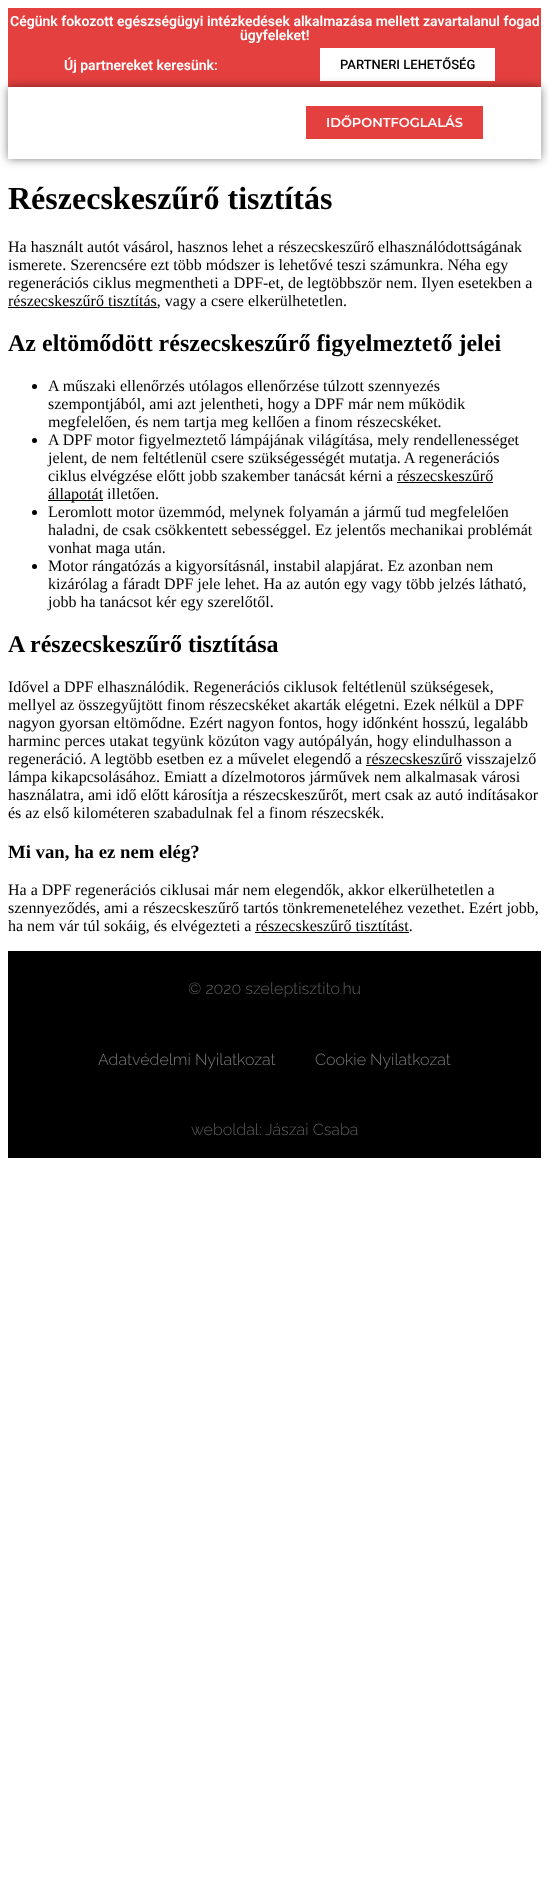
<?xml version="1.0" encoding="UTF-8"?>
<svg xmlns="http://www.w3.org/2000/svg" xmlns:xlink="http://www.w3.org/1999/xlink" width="549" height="1881">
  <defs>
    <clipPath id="clip1"><path d="M 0 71 h 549 v 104 h -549 z m 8 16 h 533 v 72 h -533 z" clip-rule="evenodd" /></clipPath>
  </defs>
  <rect width="100%" height="100%" fill="#ffffff" />
  <rect x="8" y="8" width="533" height="79" fill="#e3403f" />
  <rect x="320" y="48" width="175" height="33" fill="#ffffff" />
  <g clip-path="url(#clip1)">
    <rect x="8" y="87" width="533" height="72" fill="#000000" fill-opacity="0.5" filter="blur(5px)" />
  </g>
  <rect x="306" y="106" width="177" height="33" fill="#e3403f" />
  <rect x="8" y="307" width="149" height="1" fill="#000000" />
  <circle cx="34.5" cy="386.5" r="2.5" fill="#000000" />
  <circle cx="34.5" cy="440.5" r="2.5" fill="#000000" />
  <rect x="397" y="482" width="96" height="1" fill="#000000" />
  <rect x="48" y="500" width="55" height="1" fill="#000000" />
  <circle cx="34.5" cy="512.5" r="2.5" fill="#000000" />
  <circle cx="34.5" cy="566.5" r="2.5" fill="#000000" />
  <rect x="366" y="765" width="96" height="1" fill="#000000" />
  <rect x="255" y="932" width="154" height="1" fill="#000000" />
  <rect x="8" y="951" width="533" height="207" fill="#000000" />
  <text x="10" y="26" style="font-family: Roboto; font-size: 14px; font-weight: 600; fill: #ffffff">Cégünk fokozott egészségügyi intézkedések alkalmazása mellett zavartalanul fogad</text>
  <text x="240" y="40" style="font-family: Roboto; font-size: 14px; font-weight: 600; fill: #ffffff">ügyfeleket!</text>
  <text x="64" y="70" style="font-family: Roboto; font-size: 14px; font-weight: 600; fill: #ffffff">Új partnereket keresünk:</text>
  <text x="340" y="69" style="font-family: Roboto; font-size: 13px; font-weight: 500; fill: #000000">PARTNERI LEHETŐSÉG</text>
  <text x="326" y="127" style="font-family: Montserrat; font-size: 13px; font-weight: 600; fill: #ffffff">IDŐPONTFOGLALÁS</text>
  <text x="8" y="209" style="font-family: Liberation Serif; font-size: 32px; font-weight: bold; fill: #000000">Részecskeszűrő tisztítás</text>
  <text x="8" y="252" style="font-family: Liberation Serif; font-size: 16px; fill: #000000">Ha használt autót vásárol, hasznos lehet a részecskeszűrő elhasználódottságának</text>
  <text x="8" y="270" style="font-family: Liberation Serif; font-size: 16px; fill: #000000">ismerete. Szerencsére ezt több módszer is lehetővé teszi számunkra. Néha egy</text>
  <text x="8" y="288" style="font-family: Liberation Serif; font-size: 16px; fill: #000000">regenerációs ciklus megmentheti a DPF-et, de legtöbbször nem. Ilyen esetekben a</text>
  <text x="8" y="306" style="font-family: Liberation Serif; font-size: 16px; fill: #000000">részecskeszűrő tisztítás, vagy a csere elkerülhetetlen.</text>
  <text x="8" y="351" style="font-family: Liberation Serif; font-size: 24px; font-weight: bold; fill: #000000">Az eltömődött részecskeszűrő figyelmeztető jelei</text>
  <text x="48" y="391" style="font-family: Liberation Serif; font-size: 16px; fill: #000000">A műszaki ellenőrzés utólagos ellenőrzése túlzott szennyezés</text>
  <text x="48" y="409" style="font-family: Liberation Serif; font-size: 16px; fill: #000000">szempontjából, ami azt jelentheti, hogy a DPF már nem működik</text>
  <text x="48" y="427" style="font-family: Liberation Serif; font-size: 16px; fill: #000000">megfelelően, és nem tartja meg kellően a finom részecskéket.</text>
  <text x="48" y="445" style="font-family: Liberation Serif; font-size: 16px; fill: #000000">A DPF motor figyelmeztető lámpájának világítása, mely rendellenességet</text>
  <text x="48" y="463" style="font-family: Liberation Serif; font-size: 16px; fill: #000000">jelent, de nem feltétlenül csere szükségességét mutatja. A regenerációs</text>
  <text x="48" y="481" style="font-family: Liberation Serif; font-size: 16px; fill: #000000">ciklus elvégzése előtt jobb szakember tanácsát kérni a részecskeszűrő</text>
  <text x="48" y="499" style="font-family: Liberation Serif; font-size: 16px; fill: #000000">állapotát illetően.</text>
  <text x="48" y="517" style="font-family: Liberation Serif; font-size: 16px; fill: #000000">Leromlott motor üzemmód, melynek folyamán a jármű tud megfelelően</text>
  <text x="48" y="535" style="font-family: Liberation Serif; font-size: 16px; fill: #000000">haladni, de csak csökkentett sebességgel. Ez jelentős mechanikai problémát</text>
  <text x="48" y="553" style="font-family: Liberation Serif; font-size: 16px; fill: #000000">vonhat maga után.</text>
  <text x="48" y="571" style="font-family: Liberation Serif; font-size: 16px; fill: #000000">Motor rángatózás a kigyorsításnál, instabil alapjárat. Ez azonban nem</text>
  <text x="48" y="589" style="font-family: Liberation Serif; font-size: 16px; fill: #000000">kizárólag a fáradt DPF jele lehet. Ha az autón egy vagy több jelzés látható,</text>
  <text x="48" y="607" style="font-family: Liberation Serif; font-size: 16px; fill: #000000">jobb ha tanácsot kér egy szerelőtől.</text>
  <text x="8" y="652" style="font-family: Liberation Serif; font-size: 24px; font-weight: bold; fill: #000000">A részecskeszűrő tisztítása</text>
  <text x="8" y="692" style="font-family: Liberation Serif; font-size: 16px; fill: #000000">Idővel a DPF elhasználódik. Regenerációs ciklusok feltétlenül szükségesek,</text>
  <text x="8" y="710" style="font-family: Liberation Serif; font-size: 16px; fill: #000000">mellyel az összegyűjtött finom részecskéket akarták elégetni. Ezek nélkül a DPF</text>
  <text x="8" y="728" style="font-family: Liberation Serif; font-size: 16px; fill: #000000">nagyon gyorsan eltömődne. Ezért nagyon fontos, hogy időnként hosszú, legalább</text>
  <text x="8" y="746" style="font-family: Liberation Serif; font-size: 16px; fill: #000000">harminc perces utakat tegyünk közúton vagy autópályán, hogy elindulhasson a</text>
  <text x="8" y="764" style="font-family: Liberation Serif; font-size: 16px; fill: #000000">regeneráció. A legtöbb esetben ez a művelet elegendő a részecskeszűrő visszajelző</text>
  <text x="8" y="782" style="font-family: Liberation Serif; font-size: 16px; fill: #000000">lámpa kikapcsolásához. Emiatt a dízelmotoros járművek nem alkalmasak városi</text>
  <text x="8" y="800" style="font-family: Liberation Serif; font-size: 16px; fill: #000000">használatra, ami idő előtt károsítja a részecskeszűrőt, mert csak az autó indításakor</text>
  <text x="8" y="818" style="font-family: Liberation Serif; font-size: 16px; fill: #000000">és az első kilométeren szabadulnak fel a finom részecskék.</text>
  <text x="8" y="858" style="font-family: Liberation Serif; font-size: 18.75px; font-weight: bold; fill: #000000">Mi van, ha ez nem elég?</text>
  <text x="8" y="895" style="font-family: Liberation Serif; font-size: 16px; fill: #000000">Ha a DPF regenerációs ciklusai már nem elegendők, akkor elkerülhetetlen a</text>
  <text x="8" y="913" style="font-family: Liberation Serif; font-size: 16px; fill: #000000">szennyeződés, ami a részecskeszűrő tartós tönkremeneteléhez vezethet. Ezért jobb,</text>
  <text x="8" y="931" style="font-family: Liberation Serif; font-size: 16px; fill: #000000">ha nem vár túl sokáig, és elvégezteti a részecskeszűrő tisztítást.</text>
  <text x="188" y="994" style="font-family: Raleway; font-size: 16px; font-weight: 300; fill: #5e5e5e">© 2020 szeleptisztito.hu</text>
  <text x="98" y="1065" style="font-family: Raleway; font-size: 16px; font-weight: 300; fill: #7a7a7a">Adatvédelmi Nyilatkozat</text>
  <text x="315" y="1065" style="font-family: Raleway; font-size: 16px; font-weight: 300; fill: #7a7a7a">Cookie Nyilatkozat</text>
  <text x="191" y="1135" style="font-family: Raleway; font-size: 16px; font-weight: 300; fill: #5e5e5e">weboldal:</text>
  <text x="265" y="1135" style="font-family: Raleway; font-size: 16px; font-weight: 300; fill: #5e5e5e">Jászai Csaba</text>
</svg>
